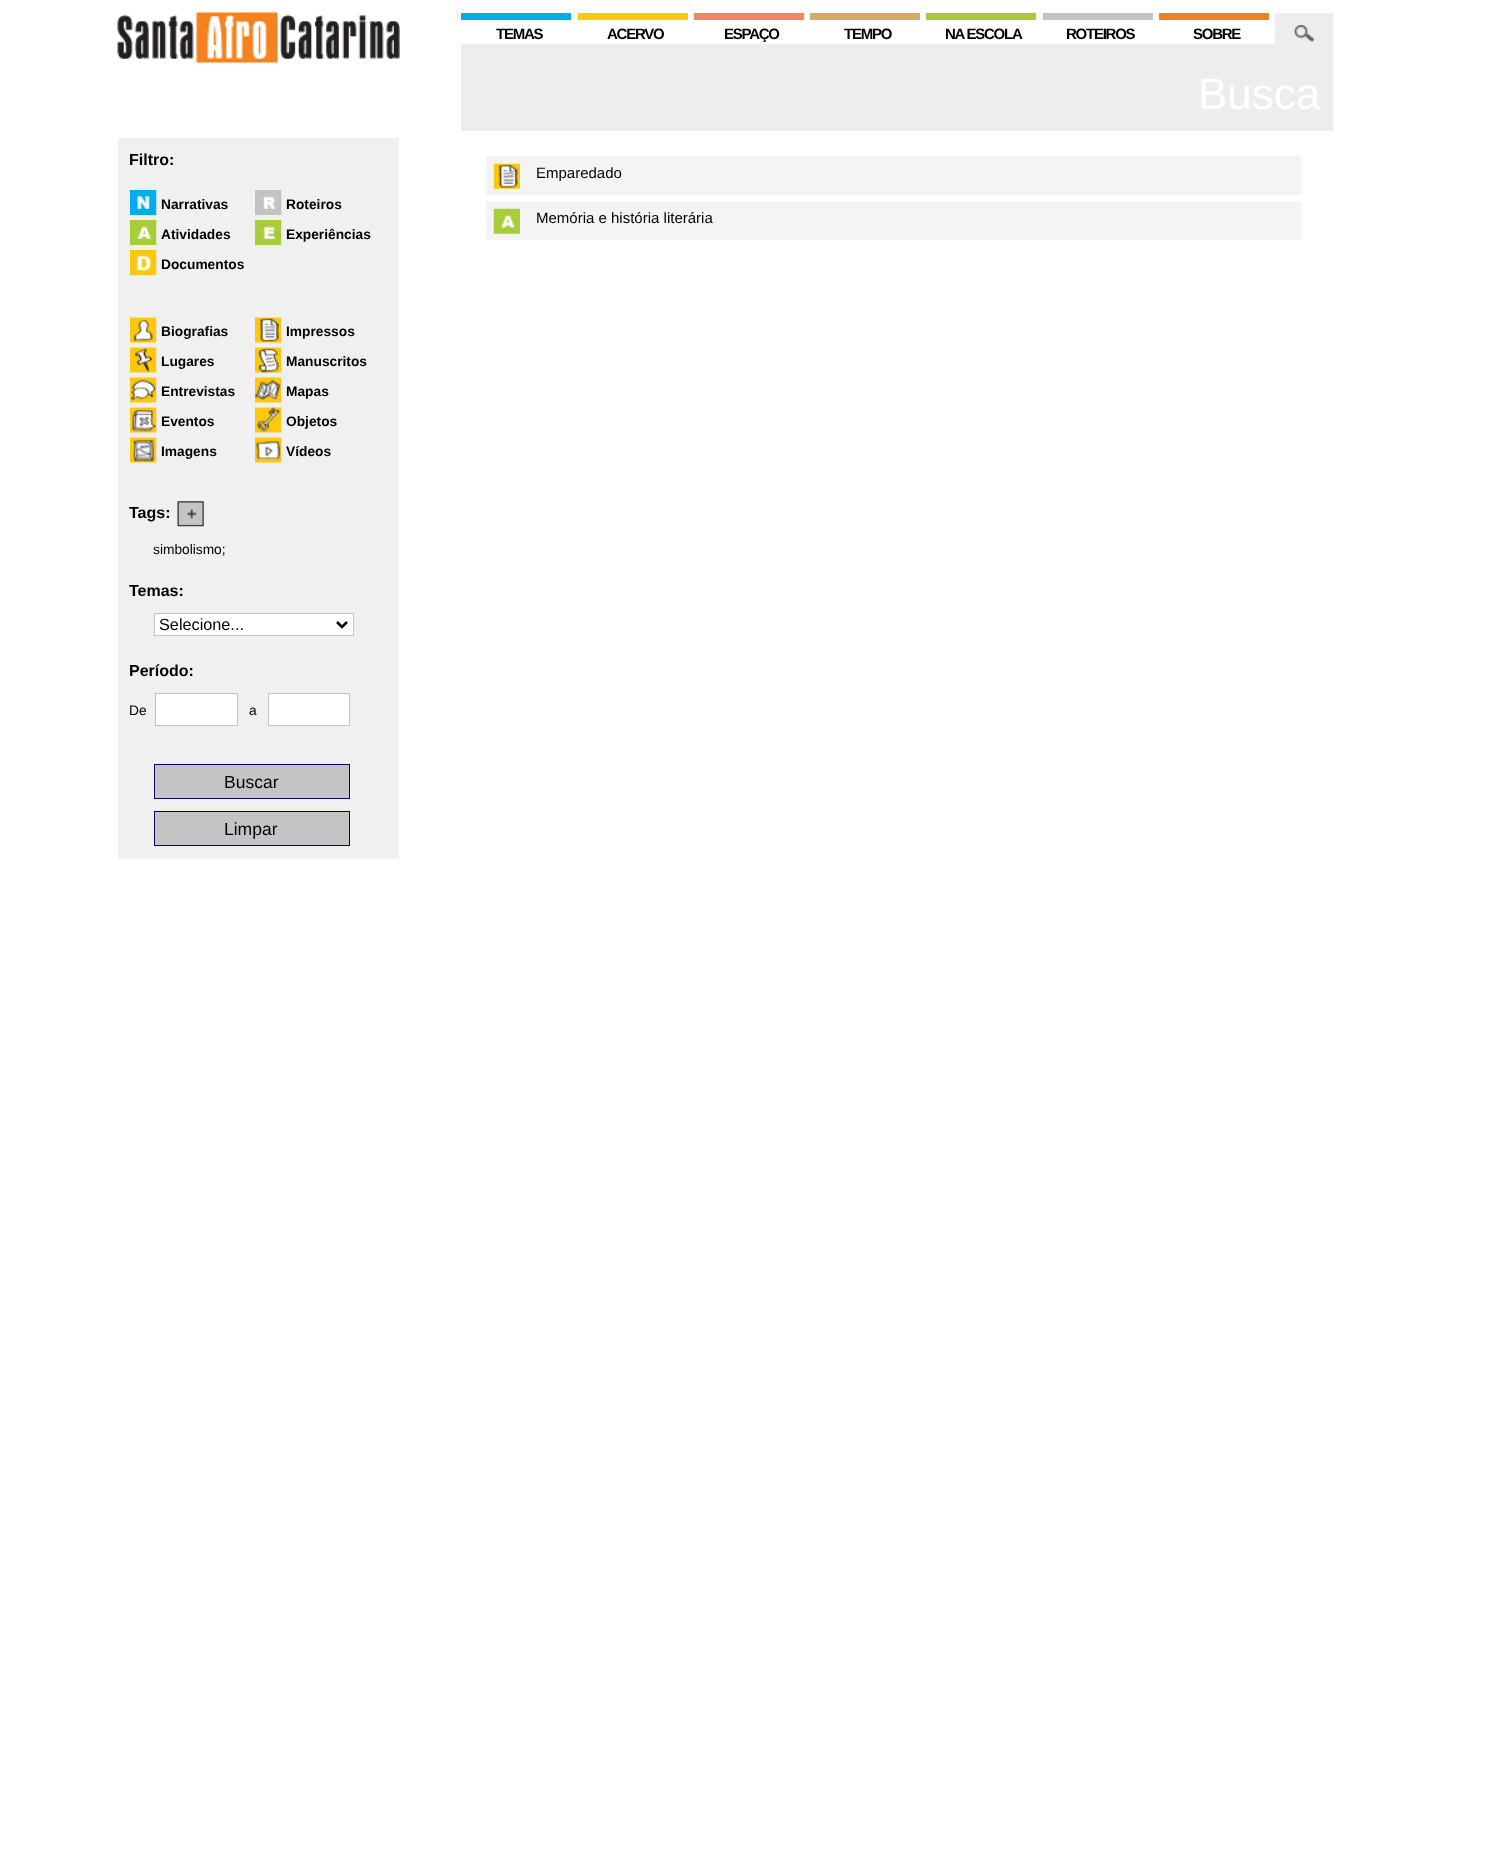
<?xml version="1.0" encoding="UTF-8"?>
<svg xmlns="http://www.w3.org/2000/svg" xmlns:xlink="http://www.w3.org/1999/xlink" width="1489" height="1860">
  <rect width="100%" height="100%" fill="#ffffff" />
  <rect x="461" y="13" width="110" height="7" fill="#00aee7" />
  <rect x="578" y="13" width="110" height="7" fill="#ffc80f" />
  <rect x="694" y="13" width="110" height="7" fill="#f58465" />
  <rect x="810" y="13" width="110" height="7" fill="#d2ab67" />
  <rect x="926" y="13" width="110" height="7" fill="#a9cc3a" />
  <rect x="1043" y="13" width="110" height="7" fill="#c3c3c3" />
  <rect x="1159" y="13" width="110" height="7" fill="#f48120" />
  <rect x="1275" y="13" width="58" height="31" fill="#ededed" />
  <image x="1293" y="25" width="21" height="17" xlink:href="image1.png" />
  <rect x="461" y="44" width="872" height="87" fill="#ededed" />
  <rect x="486" y="156" width="815" height="39" fill="#f4f4f4" />
  <image x="493" y="163" width="27" height="26" xlink:href="image2.png" />
  <rect x="486" y="201" width="815" height="39" fill="#f4f4f4" />
  <image x="493" y="208" width="27" height="26" xlink:href="image3.png" />
  <image x="117" y="12" width="283" height="51" xlink:href="image4.png" />
  <rect x="118" y="138" width="281" height="721" fill="#f0f0f0" />
  <image x="130" y="190" width="27" height="25" xlink:href="image5.png" />
  <image x="130" y="220" width="27" height="25" xlink:href="image6.png" />
  <image x="130" y="250" width="27" height="25" xlink:href="image7.png" />
  <image x="255" y="190" width="27" height="25" xlink:href="image8.png" />
  <image x="255" y="220" width="27" height="25" xlink:href="image9.png" />
  <image x="130" y="317" width="27" height="26" xlink:href="image10.png" />
  <image x="130" y="347" width="27" height="26" xlink:href="image11.png" />
  <image x="130" y="377" width="27" height="26" xlink:href="image12.png" />
  <image x="130" y="407" width="27" height="26" xlink:href="image13.png" />
  <image x="130" y="437" width="27" height="26" xlink:href="image14.png" />
  <image x="255" y="317" width="27" height="26" xlink:href="image15.png" />
  <image x="255" y="347" width="27" height="26" xlink:href="image16.png" />
  <image x="255" y="377" width="27" height="26" xlink:href="image17.png" />
  <image x="255" y="407" width="27" height="26" xlink:href="image18.png" />
  <image x="255" y="437" width="27" height="26" xlink:href="image19.png" />
  <image x="177" y="501" width="27" height="26" xlink:href="image20.png" />
  <rect x="154.5" y="613.5" width="199" height="22" fill="#ffffff" stroke="#c4c4c4" />
  <path d="M 337 622 l 5 5 l 5 -5" fill="none" stroke="#000000" stroke-width="2.5" />
  <rect x="155.5" y="693.5" width="82" height="32" fill="#ffffff" stroke="#c4c4c4" />
  <rect x="268.5" y="693.5" width="81" height="32" fill="#ffffff" stroke="#c4c4c4" />
  <rect x="154.5" y="764.5" width="195" height="34" fill="#c4c4c4" stroke="#000066" />
  <rect x="154.5" y="811.5" width="195" height="34" fill="#c4c4c4" stroke="#000066" />
  <text x="496" y="39" style="font-family: Liberation Sans; font-size: 15px; font-weight: bold; letter-spacing: -1.25px; fill: #000000">TEMAS</text>
  <text x="607" y="39" style="font-family: Liberation Sans; font-size: 15px; font-weight: bold; letter-spacing: -1.25px; fill: #000000">ACERVO</text>
  <text x="724" y="39" style="font-family: Liberation Sans; font-size: 15px; font-weight: bold; letter-spacing: -1.25px; fill: #000000">ESPAÇO</text>
  <text x="844" y="39" style="font-family: Liberation Sans; font-size: 15px; font-weight: bold; letter-spacing: -1.25px; fill: #000000">TEMPO</text>
  <text x="945" y="39" style="font-family: Liberation Sans; font-size: 15px; font-weight: bold; letter-spacing: -1.25px; fill: #000000">NA ESCOLA</text>
  <text x="1066" y="39" style="font-family: Liberation Sans; font-size: 15px; font-weight: bold; letter-spacing: -1.25px; fill: #000000">ROTEIROS</text>
  <text x="1193" y="39" style="font-family: Liberation Sans; font-size: 15px; font-weight: bold; letter-spacing: -1.25px; fill: #000000">SOBRE</text>
  <text x="1198" y="109" style="font-family: Liberation Sans; font-size: 44px; fill: #ffffff">Busca</text>
  <text x="536" y="178" style="font-family: Liberation Sans; font-size: 15px; fill: #000000">Emparedado</text>
  <text x="536" y="223" style="font-family: Liberation Sans; font-size: 15px; fill: #000000">Memória e história literária</text>
  <text x="129" y="165" style="font-family: Liberation Sans; font-size: 16px; font-weight: bold; fill: #000000">Filtro:</text>
  <text x="161" y="209" style="font-family: Liberation Sans; font-size: 13.75px; font-weight: bold; fill: #000000">Narrativas</text>
  <text x="161" y="239" style="font-family: Liberation Sans; font-size: 13.75px; font-weight: bold; fill: #000000">Atividades</text>
  <text x="161" y="269" style="font-family: Liberation Sans; font-size: 13.75px; font-weight: bold; fill: #000000">Documentos</text>
  <text x="286" y="209" style="font-family: Liberation Sans; font-size: 13.75px; font-weight: bold; fill: #000000">Roteiros</text>
  <text x="286" y="239" style="font-family: Liberation Sans; font-size: 13.75px; font-weight: bold; fill: #000000">Experiências</text>
  <text x="161" y="336" style="font-family: Liberation Sans; font-size: 13.75px; font-weight: bold; fill: #000000">Biografias</text>
  <text x="161" y="366" style="font-family: Liberation Sans; font-size: 13.75px; font-weight: bold; fill: #000000">Lugares</text>
  <text x="161" y="396" style="font-family: Liberation Sans; font-size: 13.75px; font-weight: bold; fill: #000000">Entrevistas</text>
  <text x="161" y="426" style="font-family: Liberation Sans; font-size: 13.75px; font-weight: bold; fill: #000000">Eventos</text>
  <text x="161" y="456" style="font-family: Liberation Sans; font-size: 13.75px; font-weight: bold; fill: #000000">Imagens</text>
  <text x="286" y="336" style="font-family: Liberation Sans; font-size: 13.75px; font-weight: bold; fill: #000000">Impressos</text>
  <text x="286" y="366" style="font-family: Liberation Sans; font-size: 13.75px; font-weight: bold; fill: #000000">Manuscritos</text>
  <text x="286" y="396" style="font-family: Liberation Sans; font-size: 13.75px; font-weight: bold; fill: #000000">Mapas</text>
  <text x="286" y="426" style="font-family: Liberation Sans; font-size: 13.75px; font-weight: bold; fill: #000000">Objetos</text>
  <text x="286" y="456" style="font-family: Liberation Sans; font-size: 13.75px; font-weight: bold; fill: #000000">Vídeos</text>
  <text x="129" y="518" style="font-family: Liberation Sans; font-size: 16px; font-weight: bold; fill: #000000">Tags:</text>
  <text x="153" y="554" style="font-family: Liberation Sans; font-size: 13.75px; fill: #000000">simbolismo;</text>
  <text x="129" y="596" style="font-family: Liberation Sans; font-size: 16px; font-weight: bold; fill: #000000">Temas:</text>
  <text x="159" y="630" style="font-family: Liberation Sans; font-size: 16.25px; fill: #000000">Selecione...</text>
  <text x="129" y="676" style="font-family: Liberation Sans; font-size: 16px; font-weight: bold; fill: #000000">Período:</text>
  <text x="129" y="715" style="font-family: Liberation Sans; font-size: 13.75px; fill: #000000">De</text>
  <text x="249" y="715" style="font-family: Liberation Sans; font-size: 13.75px; fill: #000000">a</text>
  <text x="224" y="788" style="font-family: Liberation Sans; font-size: 17.5px; fill: #000000">Buscar</text>
  <text x="224" y="835" style="font-family: Liberation Sans; font-size: 17.5px; fill: #000000">Limpar</text>
</svg>
